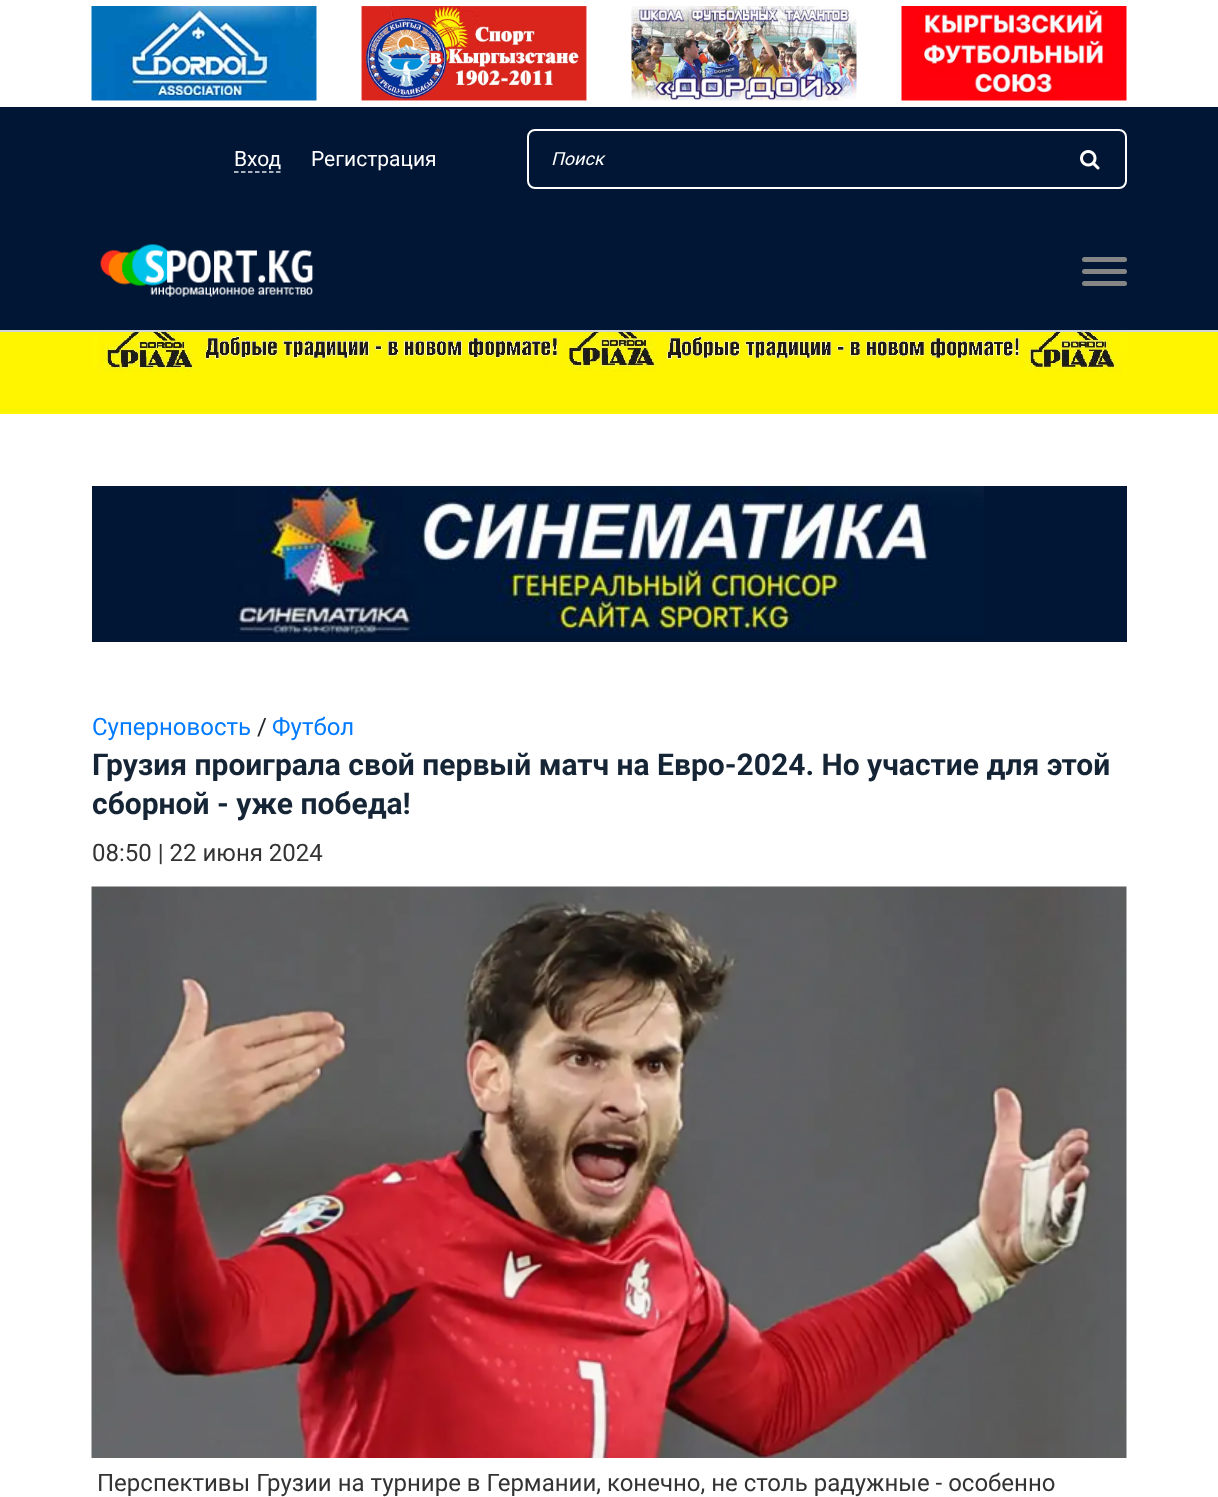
<?xml version="1.0" encoding="UTF-8"?>
<svg xmlns="http://www.w3.org/2000/svg" xmlns:xlink="http://www.w3.org/1999/xlink" width="1218" height="1497">
  <rect width="100%" height="100%" fill="#ffffff" />
  <image x="91" y="6" width="226" height="95" xlink:href="image1.png" />
  <image x="361" y="6" width="226" height="95" xlink:href="image2.png" />
  <image x="631" y="6" width="226" height="95" xlink:href="image3.png" />
  <image x="901" y="6" width="226" height="95" xlink:href="image4.png" />
  <rect y="107" width="1218" height="223" fill="#011635" />
  <path d="M 234 172 h 46.5" fill="none" stroke="#e6e8eb" stroke-width="1.5" stroke-dasharray="4.5 2.5" />
  <rect x="528" y="130" width="598" height="58" rx="7" fill="none" stroke="#ffffff" stroke-width="2" />
  <image x="1080" y="150" width="20" height="20" xlink:href="image5.png" />
  <rect y="330" width="1218" height="2" fill="#d0d5d8" />
  <image x="100" y="244" width="214" height="53" xlink:href="image6.png" />
  <rect x="1082" y="257" width="45" height="5" rx="2.5" fill="#858585" />
  <rect x="1082" y="269" width="45" height="5" rx="2.5" fill="#858585" />
  <rect x="1082" y="281" width="45" height="5" rx="2.5" fill="#858585" />
  <rect y="332" width="1218" height="82" fill="#fff500" />
  <image x="91" y="332" width="1036" height="40" xlink:href="image7.png" />
  <rect x="92" y="486" width="1035" height="156" fill="#011635" />
  <image x="234" y="486" width="750" height="150" xlink:href="image8.png" />
  <image x="91" y="886" width="1036" height="572" xlink:href="image9.png" />
  <text x="234" y="166" style="font-family: Roboto; font-size: 21px; fill: #ffffff">Вход</text>
  <text x="311" y="166" style="font-family: Roboto; font-size: 21px; fill: #ffffff">Регистрация</text>
  <text x="551" y="165" style="font-family: Roboto; font-size: 18px; font-style: italic; fill: #ffffff">Поиск</text>
  <text x="92" y="735" style="font-family: Roboto; font-size: 24px; fill: #007bff">Суперновость</text>
  <text x="257" y="735" style="font-family: Roboto; font-size: 24px; fill: #212529">/</text>
  <text x="272" y="735" style="font-family: Roboto; font-size: 24px; fill: #007bff">Футбол</text>
  <text x="92" y="775" style="font-family: Roboto; font-size: 30px; font-weight: bold; fill: #152535">Грузия проиграла свой первый матч на Евро-2024. Но участие для этой</text>
  <text x="92" y="814" style="font-family: Roboto; font-size: 30px; font-weight: bold; fill: #152535">сборной - уже победа!</text>
  <text x="92" y="861" style="font-family: Roboto; font-size: 24px; fill: #333333">08:50 | 22 июня 2024</text>
  <text x="97" y="1491" style="font-family: Roboto; font-size: 24px; fill: #333333">Перспективы Грузии на турнире в Германии, конечно, не столь радужные - особенно</text>
</svg>
